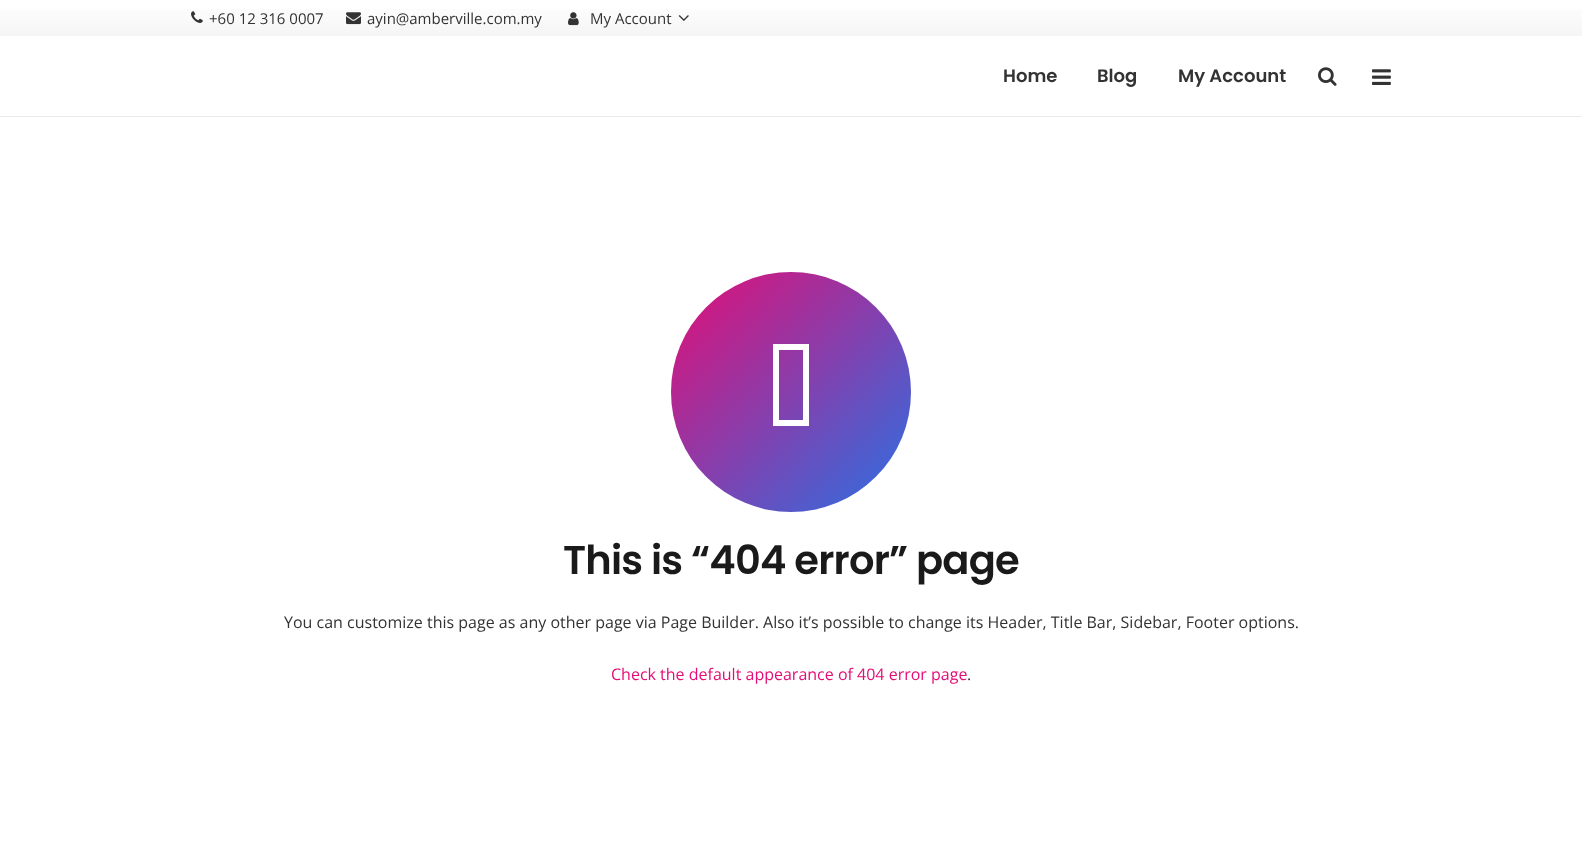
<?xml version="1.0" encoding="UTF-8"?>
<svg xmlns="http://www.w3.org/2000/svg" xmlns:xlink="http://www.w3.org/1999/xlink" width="1582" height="843">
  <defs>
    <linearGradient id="g1" gradientUnits="userSpaceOnUse" x1="791" y1="36" x2="791" y2="0"><stop offset="0" stop-color="#f5f5f5" /><stop offset="1" stop-color="#ffffff" /></linearGradient>
    <linearGradient id="g2" gradientUnits="userSpaceOnUse" x1="671" y1="272" x2="911" y2="512"><stop offset="0" stop-color="#e40d75" /><stop offset="1" stop-color="#2871e4" /></linearGradient>
  </defs>
  <rect width="100%" height="100%" fill="#ffffff" />
  <rect y="9" width="1582" height="27" fill="url(#g1)" />
  <image x="191" y="11" width="12" height="12" xlink:href="image1.png" />
  <image x="346" y="12" width="15" height="13" xlink:href="image2.png" />
  <image x="568" y="12" width="11" height="14" xlink:href="image3.png" />
  <image x="678" y="15" width="11" height="6" xlink:href="image4.png" />
  <rect y="116" width="1582" height="1" fill="#ebebeb" />
  <image x="1318" y="67" width="19" height="19" xlink:href="image5.png" />
  <image x="1372" y="69" width="19" height="16" xlink:href="image6.png" />
  <circle cx="791" cy="392" r="120" fill="url(#g2)" />
  <path d="M 779 420 v -70 h 24 v 70 z m -6 6 h 36 v -82 h -36 z" fill="#ffffff" />
  <text x="209" y="24" style="font-family: Open Sans; font-size: 15px; fill: #333333">+60 12 316 0007</text>
  <text x="367" y="24" style="font-family: Open Sans; font-size: 15px; fill: #333333">ayin@amberville.com.my</text>
  <text x="590" y="24" style="font-family: Open Sans; font-size: 15px; fill: #333333">My Account</text>
  <text x="1003" y="82" style="font-family: Poppins; font-size: 18px; font-weight: 600; fill: #333333">Home</text>
  <text x="1097" y="82" style="font-family: Poppins; font-size: 18px; font-weight: 600; fill: #333333">Blog</text>
  <text x="1178" y="82" style="font-family: Poppins; font-size: 18px; font-weight: 600; fill: #333333">My Account</text>
  <text x="563" y="574" style="font-family: Poppins; font-size: 40px; font-weight: 600; letter-spacing: -0.8px; fill: #1a1a1a">This is “404 error” page</text>
  <text x="284" y="628" style="font-family: Open Sans; font-size: 16px; fill: #333333">You can customize this page as any other page via Page Builder. Also it’s possible to change its Header, Title Bar, Sidebar, Footer options.</text>
  <text x="611" y="680" style="font-family: Open Sans; font-size: 16px; fill: #e40d75">Check the default appearance of 404 error page</text>
  <text x="967" y="680" style="font-family: Open Sans; font-size: 16px; fill: #333333">.</text>
</svg>
